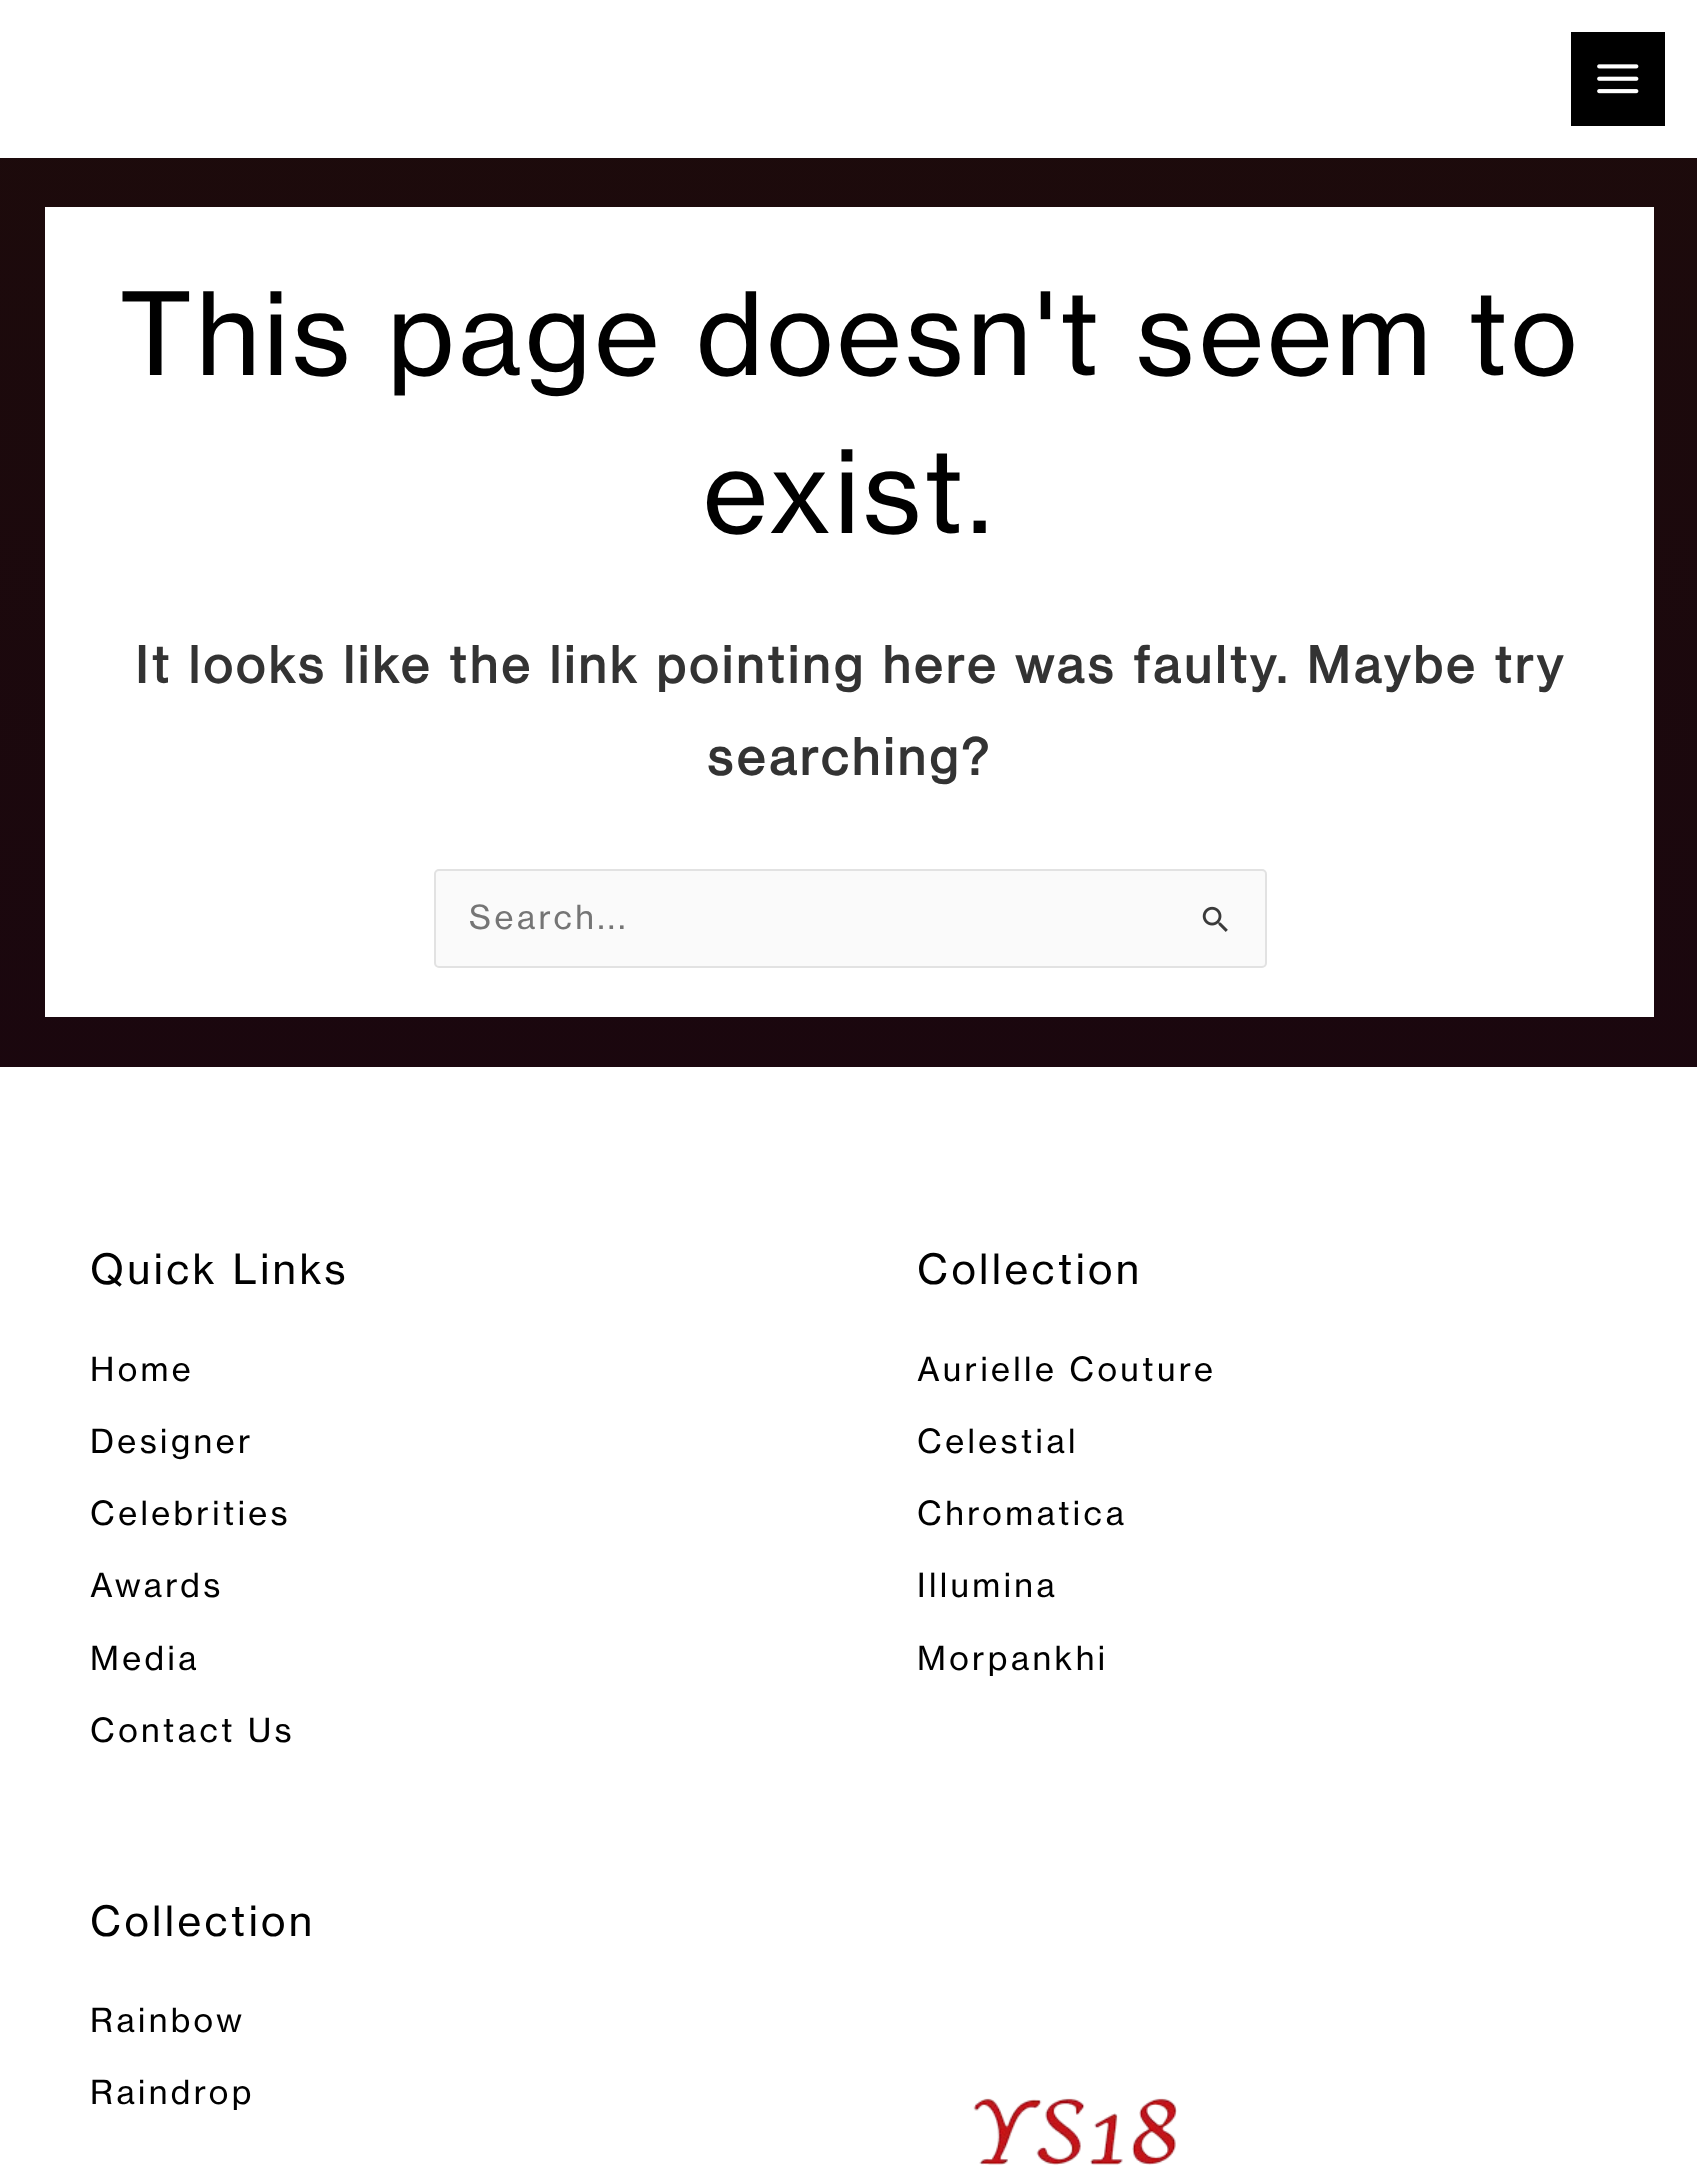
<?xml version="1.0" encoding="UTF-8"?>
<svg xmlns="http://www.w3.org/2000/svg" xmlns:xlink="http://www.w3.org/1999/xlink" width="1697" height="2168">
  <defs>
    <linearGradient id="g1" gradientUnits="userSpaceOnUse" x1="849" y1="0" x2="849" y2="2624"><stop offset="0" stop-color="#1d0b0b" /><stop offset="1" stop-color="#170113" /></linearGradient>
  </defs>
  <rect width="100%" height="100%" fill="#ffffff" />
  <rect y="158" width="1697" height="909" fill="url(#g1)" />
  <rect x="1571" y="32" width="94" height="94" fill="#000000" />
  <image x="1597" y="64" width="42" height="30" xlink:href="image1.png" />
  <rect x="45" y="207" width="1609" height="810" fill="#ffffff" />
  <rect x="435" y="870" width="831" height="97" rx="4" fill="#fafafa" stroke="#e2e2e2" stroke-width="2" />
  <image x="1202" y="906" width="26" height="26" xlink:href="image2.png" />
  <image x="973" y="2098" width="204" height="67" xlink:href="image3.png" />
  <text x="119" y="375" style="font-family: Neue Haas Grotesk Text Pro; font-size: 112.5px; letter-spacing: 3.38px; fill: #000000">This page doesn't seem to</text>
  <text x="703" y="533" style="font-family: Neue Haas Grotesk Text Pro; font-size: 112.5px; letter-spacing: 3.38px; fill: #000000">exist.</text>
  <text x="135" y="683" style="font-family: Neue Haas Grotesk Text Pro; font-size: 49.25px; font-weight: bold; letter-spacing: 3.38px; fill: #333333">It looks like the link pointing here was faulty. Maybe try</text>
  <text x="707" y="775" style="font-family: Neue Haas Grotesk Text Pro; font-size: 49.25px; font-weight: bold; letter-spacing: 3.38px; fill: #333333">searching?</text>
  <text x="469" y="929" style="font-family: Neue Haas Grotesk Text Pro; font-size: 32.75px; letter-spacing: 3.38px; fill: #757575">Search...</text>
  <text x="90" y="1284" style="font-family: Neue Haas Grotesk Text Pro; font-size: 41px; letter-spacing: 3.38px; fill: #000000">Quick Links</text>
  <text x="90" y="1381" style="font-family: Neue Haas Grotesk Text Pro; font-size: 32.75px; letter-spacing: 3.38px; fill: #000000">Home</text>
  <text x="90" y="1453" style="font-family: Neue Haas Grotesk Text Pro; font-size: 32.75px; letter-spacing: 3.38px; fill: #000000">Designer</text>
  <text x="90" y="1525" style="font-family: Neue Haas Grotesk Text Pro; font-size: 32.75px; letter-spacing: 3.38px; fill: #000000">Celebrities</text>
  <text x="90" y="1597" style="font-family: Neue Haas Grotesk Text Pro; font-size: 32.75px; letter-spacing: 3.38px; fill: #000000">Awards</text>
  <text x="90" y="1670" style="font-family: Neue Haas Grotesk Text Pro; font-size: 32.75px; letter-spacing: 3.38px; fill: #000000">Media</text>
  <text x="90" y="1742" style="font-family: Neue Haas Grotesk Text Pro; font-size: 32.75px; letter-spacing: 3.38px; fill: #000000">Contact Us</text>
  <text x="917" y="1284" style="font-family: Neue Haas Grotesk Text Pro; font-size: 41px; letter-spacing: 3.38px; fill: #000000">Collection</text>
  <text x="917" y="1381" style="font-family: Neue Haas Grotesk Text Pro; font-size: 32.75px; letter-spacing: 3.38px; fill: #000000">Aurielle Couture</text>
  <text x="917" y="1453" style="font-family: Neue Haas Grotesk Text Pro; font-size: 32.75px; letter-spacing: 3.38px; fill: #000000">Celestial</text>
  <text x="917" y="1525" style="font-family: Neue Haas Grotesk Text Pro; font-size: 32.75px; letter-spacing: 3.38px; fill: #000000">Chromatica</text>
  <text x="917" y="1597" style="font-family: Neue Haas Grotesk Text Pro; font-size: 32.75px; letter-spacing: 3.38px; fill: #000000">Illumina</text>
  <text x="917" y="1670" style="font-family: Neue Haas Grotesk Text Pro; font-size: 32.75px; letter-spacing: 3.38px; fill: #000000">Morpankhi</text>
  <text x="90" y="1936" style="font-family: Neue Haas Grotesk Text Pro; font-size: 41px; letter-spacing: 3.38px; fill: #000000">Collection</text>
  <text x="90" y="2032" style="font-family: Neue Haas Grotesk Text Pro; font-size: 32.75px; letter-spacing: 3.38px; fill: #000000">Rainbow</text>
  <text x="90" y="2104" style="font-family: Neue Haas Grotesk Text Pro; font-size: 32.75px; letter-spacing: 3.38px; fill: #000000">Raindrop</text>
</svg>
